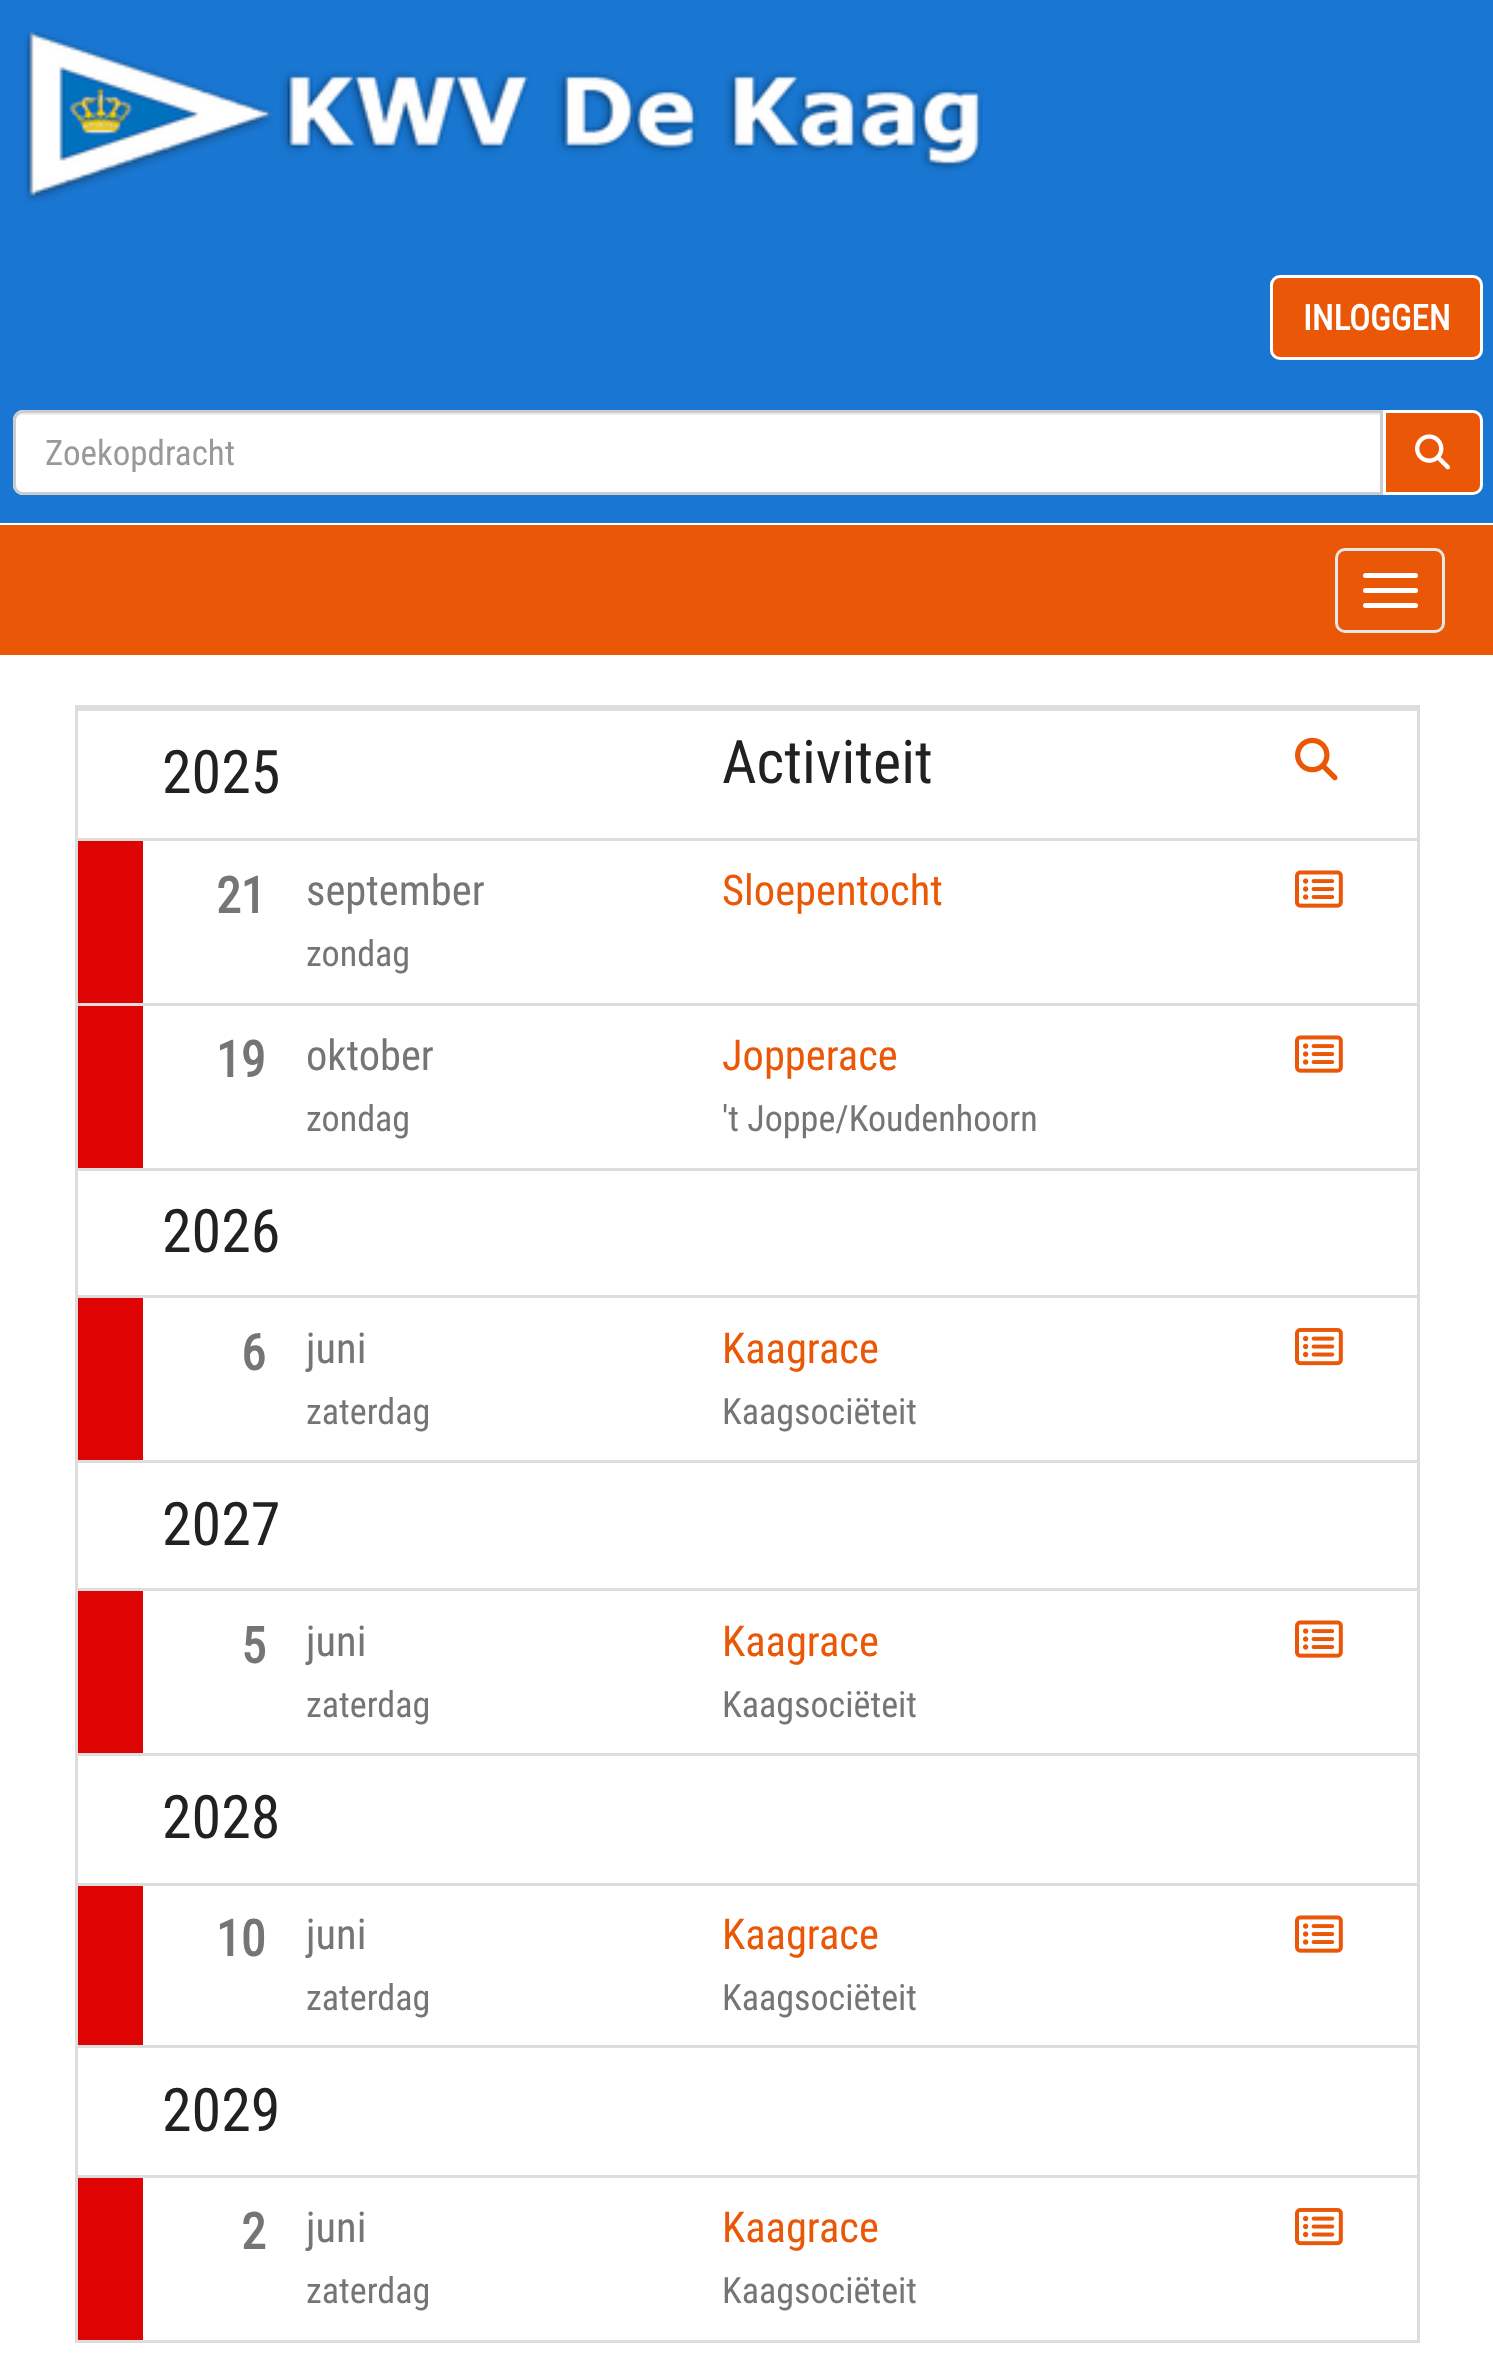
<?xml version="1.0" encoding="UTF-8"?>
<svg xmlns="http://www.w3.org/2000/svg" xmlns:xlink="http://www.w3.org/1999/xlink" width="1493" height="2374">
  <rect width="100%" height="100%" fill="#ffffff" />
  <rect width="1493" height="523" fill="#1976d2" />
  <image x="23" y="30" width="960" height="173" xlink:href="image1.png" />
  <rect x="1271.5" y="276.5" width="210" height="82" rx="8.5" fill="#ea5707" stroke="#ffffff" stroke-width="3" />
  <path d="M 23 410 h 1360 v 85 h -1360 c -5.5 0 -10 -4.5 -10 -10 v -65 c 0 -5.5 4.5 -10 10 -10 z" fill="#ffffff" />
  <path d="M 22 415 h 1358 v -2 h -1357 c -5 0 -8 4 -8 9 c 0 -4 3 -7 7 -7 z" fill="#ececec" />
  <path d="M 23 411.5 h 1358.5 v 82 h -1358.5 c -4.5 0 -8.5 -4 -8.5 -8.5 v -65 c 0 -4.5 4 -8.5 8.5 -8.5 z" fill="none" stroke="#cccccc" stroke-width="3" />
  <path d="M 1384.5 411.5 h 88.5 c 4.5 0 8.5 4 8.5 8.5 v 65 c 0 4.5 -4 8.5 -8.5 8.5 h -88.5 z" fill="#ea5707" stroke="#ffffff" stroke-width="3" />
  <image x="1415" y="434" width="35" height="36" xlink:href="image2.png" />
  <rect y="525" width="1493" height="130" fill="#ea5707" />
  <rect x="1336.5" y="549.5" width="107" height="82" rx="8.5" fill="none" stroke="#e7e7e7" stroke-width="3" />
  <rect x="1363" y="573" width="55" height="5" rx="2.5" fill="#ffffff" />
  <rect x="1363" y="588" width="55" height="5" rx="2.5" fill="#ffffff" />
  <rect x="1363" y="603" width="55" height="5" rx="2.5" fill="#ffffff" />
  <rect x="76.5" y="706.5" width="1342" height="1635" fill="none" stroke="#dddddd" stroke-width="3" />
  <rect x="78" y="708" width="1340" height="3" fill="#dddddd" />
  <image x="1295" y="737" width="43" height="44" xlink:href="image3.png" />
  <rect x="78" y="838" width="1340" height="3" fill="#dddddd" />
  <image x="1295" y="870" width="48" height="38" xlink:href="image4.png" />
  <rect x="78" y="841" width="65" height="162" fill="#de0404" />
  <rect x="78" y="1003" width="1340" height="3" fill="#dddddd" />
  <image x="1295" y="1035" width="48" height="38" xlink:href="image4.png" />
  <rect x="78" y="1006" width="65" height="162" fill="#de0404" />
  <rect x="78" y="1168" width="1340" height="3" fill="#dddddd" />
  <rect x="78" y="1295" width="1340" height="3" fill="#dddddd" />
  <image x="1295" y="1328" width="48" height="38" xlink:href="image5.png" />
  <rect x="78" y="1298" width="65" height="162" fill="#de0404" />
  <rect x="78" y="1460" width="1340" height="3" fill="#dddddd" />
  <rect x="78" y="1588" width="1340" height="3" fill="#dddddd" />
  <image x="1295" y="1620" width="48" height="38" xlink:href="image4.png" />
  <rect x="78" y="1591" width="65" height="162" fill="#de0404" />
  <rect x="78" y="1753" width="1340" height="3" fill="#dddddd" />
  <rect x="78" y="1883" width="1340" height="3" fill="#dddddd" />
  <image x="1295" y="1915" width="48" height="38" xlink:href="image4.png" />
  <rect x="78" y="1886" width="65" height="159" fill="#de0404" />
  <rect x="78" y="2045" width="1340" height="3" fill="#dddddd" />
  <rect x="78" y="2175" width="1340" height="3" fill="#dddddd" />
  <image x="1295" y="2208" width="48" height="38" xlink:href="image5.png" />
  <rect x="78" y="2178" width="65" height="162" fill="#de0404" />
  <text x="1303" y="330" style="font-family: Roboto Condensed; font-size: 35px; font-weight: bold; fill: #ffffff">INLOGGEN</text>
  <text x="45" y="465" style="font-family: Roboto Condensed; font-size: 35px; fill: #999999">Zoekopdracht</text>
  <text x="162" y="793" style="font-family: Roboto Condensed; font-size: 60px; fill: #212121">2025</text>
  <text x="722" y="783" style="font-family: Roboto Condensed; font-size: 60px; fill: #212121">Activiteit</text>
  <text x="216" y="913" style="font-family: Roboto Condensed; font-size: 50px; font-weight: bold; fill: #757575">21</text>
  <text x="306" y="905" style="font-family: Roboto Condensed; font-size: 42.5px; fill: #757575">september</text>
  <text x="306" y="966" style="font-family: Roboto Condensed; font-size: 36.1px; fill: #757575">zondag</text>
  <text x="722" y="905" style="font-family: Roboto Condensed; font-size: 42.5px; fill: #ea5707">Sloepentocht</text>
  <text x="216" y="1077" style="font-family: Roboto Condensed; font-size: 50px; font-weight: bold; fill: #757575">19</text>
  <text x="306" y="1070" style="font-family: Roboto Condensed; font-size: 42.5px; fill: #757575">oktober</text>
  <text x="306" y="1131" style="font-family: Roboto Condensed; font-size: 36.1px; fill: #757575">zondag</text>
  <text x="722" y="1070" style="font-family: Roboto Condensed; font-size: 42.5px; fill: #ea5707">Jopperace</text>
  <text x="722" y="1131" style="font-family: Roboto Condensed; font-size: 36.1px; fill: #757575">'t Joppe/Koudenhoorn</text>
  <text x="162" y="1252" style="font-family: Roboto Condensed; font-size: 60px; fill: #212121">2026</text>
  <text x="241" y="1370" style="font-family: Roboto Condensed; font-size: 50px; font-weight: bold; fill: #757575">6</text>
  <text x="306" y="1363" style="font-family: Roboto Condensed; font-size: 42.5px; fill: #757575">juni</text>
  <text x="306" y="1424" style="font-family: Roboto Condensed; font-size: 36.1px; fill: #757575">zaterdag</text>
  <text x="722" y="1363" style="font-family: Roboto Condensed; font-size: 42.5px; fill: #ea5707">Kaagrace</text>
  <text x="722" y="1424" style="font-family: Roboto Condensed; font-size: 36.1px; fill: #757575">Kaagsociëteit</text>
  <text x="162" y="1545" style="font-family: Roboto Condensed; font-size: 60px; fill: #212121">2027</text>
  <text x="241" y="1663" style="font-family: Roboto Condensed; font-size: 50px; font-weight: bold; fill: #757575">5</text>
  <text x="306" y="1656" style="font-family: Roboto Condensed; font-size: 42.5px; fill: #757575">juni</text>
  <text x="306" y="1717" style="font-family: Roboto Condensed; font-size: 36.1px; fill: #757575">zaterdag</text>
  <text x="722" y="1656" style="font-family: Roboto Condensed; font-size: 42.5px; fill: #ea5707">Kaagrace</text>
  <text x="722" y="1717" style="font-family: Roboto Condensed; font-size: 36.1px; fill: #757575">Kaagsociëteit</text>
  <text x="162" y="1838" style="font-family: Roboto Condensed; font-size: 60px; fill: #212121">2028</text>
  <text x="216" y="1956" style="font-family: Roboto Condensed; font-size: 50px; font-weight: bold; fill: #757575">10</text>
  <text x="306" y="1949" style="font-family: Roboto Condensed; font-size: 42.5px; fill: #757575">juni</text>
  <text x="306" y="2010" style="font-family: Roboto Condensed; font-size: 36.1px; fill: #757575">zaterdag</text>
  <text x="722" y="1949" style="font-family: Roboto Condensed; font-size: 42.5px; fill: #ea5707">Kaagrace</text>
  <text x="722" y="2010" style="font-family: Roboto Condensed; font-size: 36.1px; fill: #757575">Kaagsociëteit</text>
  <text x="162" y="2131" style="font-family: Roboto Condensed; font-size: 60px; fill: #212121">2029</text>
  <text x="241" y="2249" style="font-family: Roboto Condensed; font-size: 50px; font-weight: bold; fill: #757575">2</text>
  <text x="306" y="2242" style="font-family: Roboto Condensed; font-size: 42.5px; fill: #757575">juni</text>
  <text x="306" y="2303" style="font-family: Roboto Condensed; font-size: 36.1px; fill: #757575">zaterdag</text>
  <text x="722" y="2242" style="font-family: Roboto Condensed; font-size: 42.5px; fill: #ea5707">Kaagrace</text>
  <text x="722" y="2303" style="font-family: Roboto Condensed; font-size: 36.1px; fill: #757575">Kaagsociëteit</text>
</svg>
